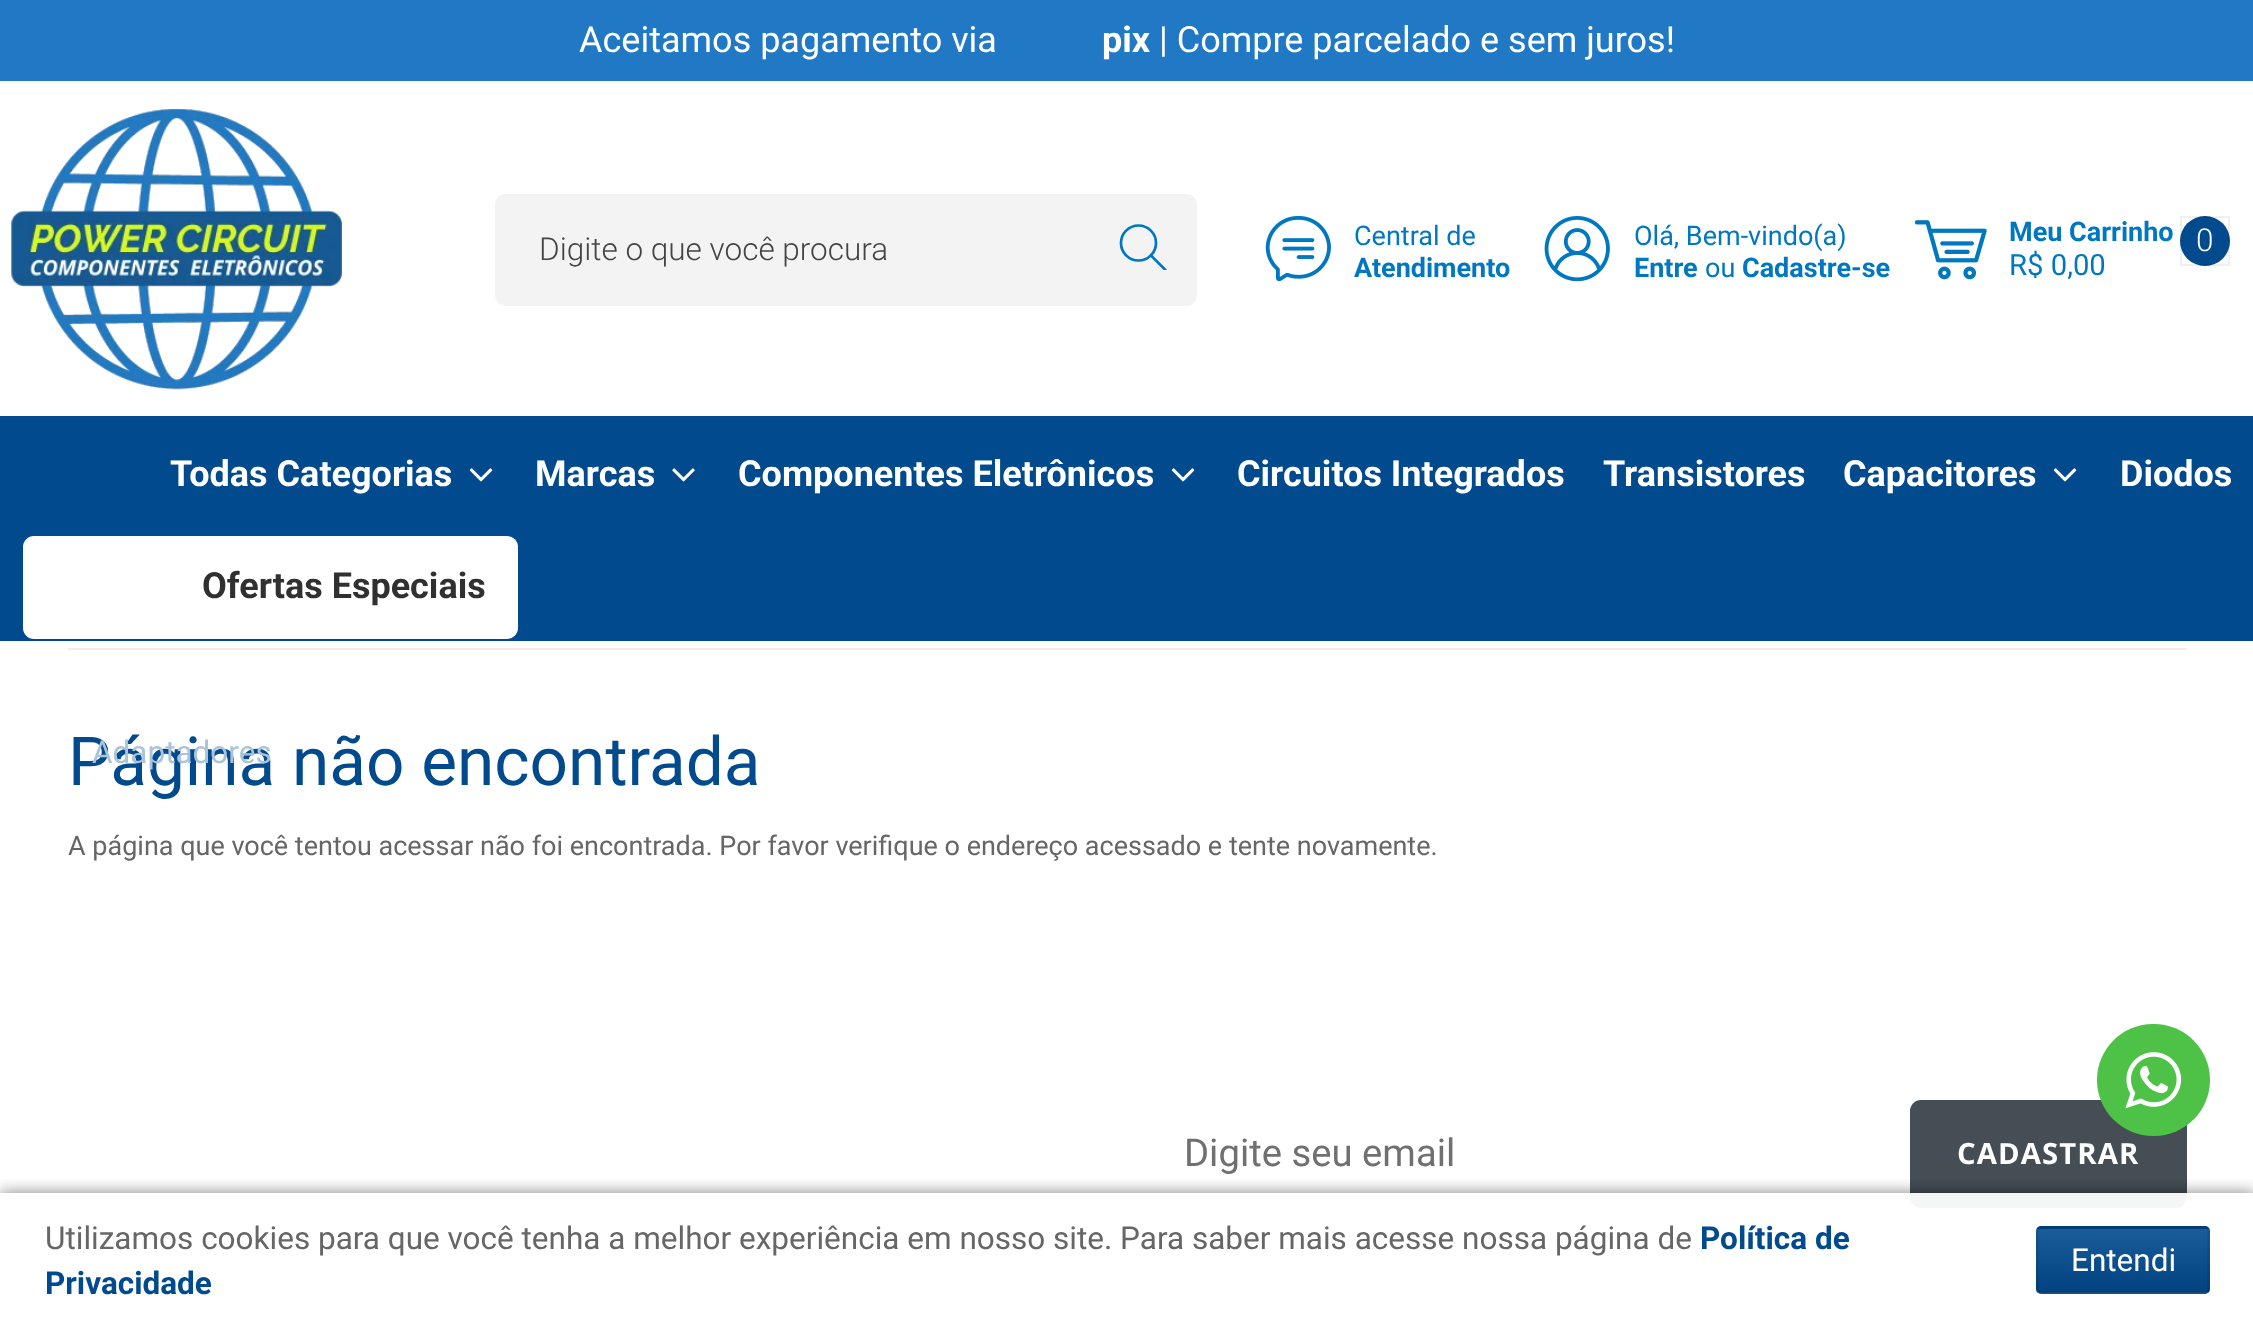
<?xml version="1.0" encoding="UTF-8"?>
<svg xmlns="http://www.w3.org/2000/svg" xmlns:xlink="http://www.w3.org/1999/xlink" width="2253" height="1327">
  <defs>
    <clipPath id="clip1"><rect x="1118" y="223" width="50" height="47" /></clipPath>
    <clipPath id="clip2"><rect x="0" y="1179" width="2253" height="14" /></clipPath>
    <clipPath id="clip3"><rect x="2036" y="1226" width="174" height="68" rx="5" /></clipPath>
    <linearGradient id="g1" gradientUnits="userSpaceOnUse" x1="2123" y1="1166" x2="2123" y2="1229"><stop offset="0" stop-color="#ffffff" stop-opacity="0.1" /><stop offset="1" stop-color="#000000" stop-opacity="0.1" /></linearGradient>
    <linearGradient id="g2" gradientUnits="userSpaceOnUse" x1="2123" y1="1229" x2="2123" y2="1292"><stop offset="0" stop-color="#ffffff" stop-opacity="0.1" /><stop offset="1" stop-color="#000000" stop-opacity="0.1" /></linearGradient>
    <linearGradient id="g3" gradientUnits="userSpaceOnUse" x1="2123" y1="1292" x2="2123" y2="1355"><stop offset="0" stop-color="#ffffff" stop-opacity="0.1" /><stop offset="1" stop-color="#000000" stop-opacity="0.1" /></linearGradient>
  </defs>
  <rect width="100%" height="100%" fill="#ffffff" />
  <rect width="2253" height="81" fill="#2179c5" />
  <image x="11" y="108" width="331" height="282" xlink:href="image1.png" />
  <rect x="495" y="194" width="702" height="112" rx="11" fill="#f3f3f3" />
  <g clip-path="url(#clip1)">
    <path d="M 1165 269.5 l -14 -14" fill="none" stroke="#0077c1" stroke-width="2.7" stroke-linecap="square" />
  </g>
  <circle cx="1138.5" cy="243" r="17.5" fill="none" stroke="#0077c1" stroke-width="2.7" />
  <image x="1265" y="216" width="66" height="65" xlink:href="image2.png" />
  <image x="1544" y="216" width="66" height="65" xlink:href="image3.png" />
  <image x="1915" y="220" width="72" height="60" xlink:href="image4.png" />
  <circle cx="2205" cy="241" r="25" fill="#014a8e" />
  <rect x="2181" y="217" width="48" height="48" fill="none" stroke="#000000" stroke-opacity="0.06" stroke-width="2" />
  <rect y="416" width="2253" height="225" fill="#014a8e" />
  <image x="469" y="468" width="24" height="14" xlink:href="image5.png" />
  <image x="672" y="468" width="23" height="14" xlink:href="image6.png" />
  <image x="1171" y="468" width="24" height="14" xlink:href="image5.png" />
  <image x="2053" y="468" width="24" height="14" xlink:href="image5.png" />
  <rect x="23" y="536" width="495" height="103" rx="11" fill="#ffffff" />
  <rect x="68" y="648" width="2119" height="2" fill="#eeeeee" />
  <rect x="1910" y="1100" width="277" height="108" rx="11" fill="#454e55" />
  <rect x="2097" y="1024" width="113" height="112" rx="56" fill="#4dc247" />
  <image x="2125" y="1052" width="57" height="57" xlink:href="image7.png" />
  <g clip-path="url(#clip2)">
    <rect y="1193" width="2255" height="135" fill="#000000" fill-opacity="0.5" filter="blur(8px)" />
  </g>
  <rect x="1910" y="1193" width="277" height="15" fill="#ffffff" fill-opacity="0.95" />
  <rect x="2036" y="1226" width="174" height="68" rx="5" fill="#014a8e" />
  <g clip-path="url(#clip3)">
    <rect x="2036" y="1226" width="174" height="3" fill="url(#g1)" />
  </g>
  <rect x="2036" y="1229" width="174" height="63" fill="url(#g2)" />
  <g clip-path="url(#clip3)">
    <rect x="2036" y="1292" width="174" height="2" fill="url(#g3)" />
  </g>
  <path d="M 2207.5 1291.5 l -2.5 1 h -164.5 l -2 -1" fill="none" stroke="#000000" stroke-opacity="0.2" stroke-width="2.2" />
  <path d="M 2038.5 1291.5 l -1 -2.5 v -58 l 1 -2.5 l 2.5 -1 h 164 l 2.5 1 l 1 2.5 v 58 l -1 2.5" fill="none" stroke="#000000" stroke-opacity="0.1" stroke-width="2.2" />
  <text x="579" y="52" style="font-family: Roboto; font-size: 36px; fill: #ffffff">Aceitamos pagamento via</text>
  <text x="1102" y="52" style="font-family: Roboto; font-size: 36px; font-weight: bold; fill: #ffffff">pix</text>
  <text x="1159" y="52" style="font-family: Roboto; font-size: 36px; fill: #ffffff">| Compre parcelado e sem juros!</text>
  <text x="539" y="260" style="font-family: Roboto; font-size: 31.5px; font-weight: 300; fill: #444444">Digite o que você procura</text>
  <text x="1354" y="245" style="font-family: Roboto; font-size: 27px; fill: #0077c1">Central de</text>
  <text x="1354" y="277" style="font-family: Roboto; font-size: 27px; font-weight: bold; fill: #0077c1">Atendimento</text>
  <text x="1634" y="245" style="font-family: Roboto; font-size: 27px; fill: #0077c1">Olá, Bem-vindo(a)</text>
  <text x="1634" y="277" style="font-family: Roboto; font-size: 27px; font-weight: bold; fill: #0077c1">Entre</text>
  <text x="1705" y="277" style="font-family: Roboto; font-size: 27px; fill: #0077c1">ou</text>
  <text x="1742" y="277" style="font-family: Roboto; font-size: 27px; font-weight: bold; fill: #0077c1">Cadastre-se</text>
  <text x="2009" y="241" style="font-family: Roboto; font-size: 27px; font-weight: bold; fill: #0077c1">Meu Carrinho</text>
  <text x="2009" y="275" style="font-family: Roboto; font-size: 29.25px; fill: #0077c1">R$ 0,00</text>
  <text x="2196" y="251" style="font-family: Roboto; font-size: 31.5px; font-weight: 300; fill: #ffffff">0</text>
  <text x="170" y="486" style="font-family: Roboto; font-size: 36px; font-weight: bold; fill: #ffffff">Todas Categorias</text>
  <text x="535" y="486" style="font-family: Roboto; font-size: 36px; font-weight: bold; fill: #ffffff">Marcas</text>
  <text x="738" y="486" style="font-family: Roboto; font-size: 36px; font-weight: bold; fill: #ffffff">Componentes Eletrônicos</text>
  <text x="1237" y="486" style="font-family: Roboto; font-size: 36px; font-weight: bold; fill: #ffffff">Circuitos Integrados</text>
  <text x="1603" y="486" style="font-family: Roboto; font-size: 36px; font-weight: bold; fill: #ffffff">Transistores</text>
  <text x="1843" y="486" style="font-family: Roboto; font-size: 36px; font-weight: bold; fill: #ffffff">Capacitores</text>
  <text x="2120" y="486" style="font-family: Roboto; font-size: 36px; font-weight: bold; fill: #ffffff">Diodos</text>
  <text x="202" y="598" style="font-family: Roboto; font-size: 36px; font-weight: bold; fill: #303030">Ofertas Especiais</text>
  <text x="68" y="785" style="font-family: Roboto; font-size: 67.5px; fill: #014a8e">Página não encontrada</text>
  <text x="92" y="763" style="font-family: Roboto; font-size: 31.5px; fill: #aac3d9">Adaptadores</text>
  <text x="68" y="855" style="font-family: Roboto; font-size: 27px; fill: #666666">A página que você tentou acessar não foi encontrada. Por favor verifique o endereço acessado e tente novamente.</text>
  <text x="1184" y="1166" style="font-family: Roboto; font-size: 38.25px; fill: #707070">Digite seu email</text>
  <text x="1957" y="1164" style="font-family: Open Sans; font-size: 29.25px; font-weight: bold; letter-spacing: 1.1px; fill: #ffffff">CADASTRAR</text>
  <text x="45" y="1249" style="font-family: Roboto; font-size: 31.5px; fill: #666666">Utilizamos cookies para que você tenha a melhor experiência em nosso site. Para saber mais acesse nossa página de</text>
  <text x="1700" y="1249" style="font-family: Roboto; font-size: 31.5px; font-weight: bold; fill: #014a8e">Política de</text>
  <text x="45" y="1294" style="font-family: Roboto; font-size: 31.5px; font-weight: bold; fill: #014a8e">Privacidade</text>
  <text x="2071" y="1271" style="font-family: Roboto; font-size: 31.5px; fill: #ffffff">Entendi</text>
</svg>
